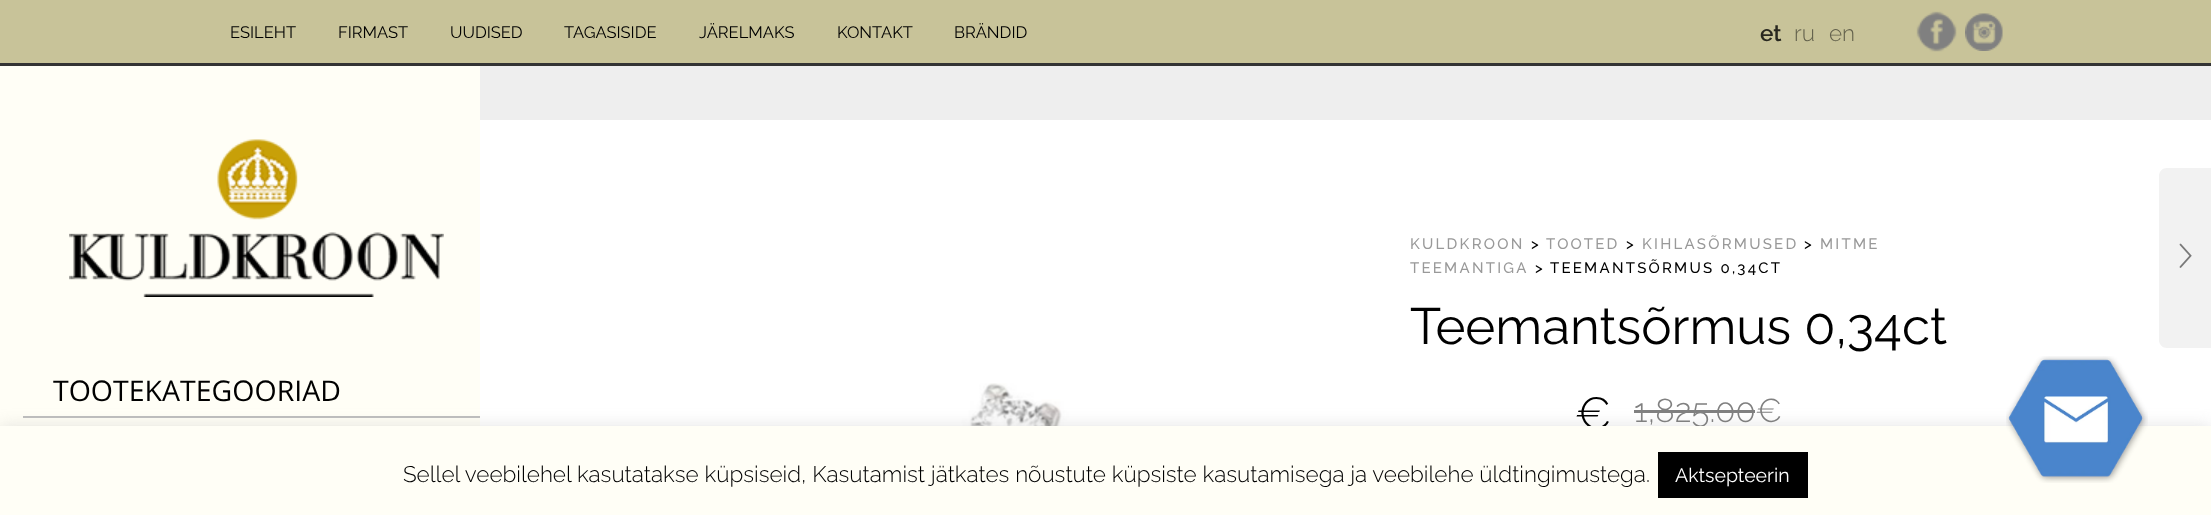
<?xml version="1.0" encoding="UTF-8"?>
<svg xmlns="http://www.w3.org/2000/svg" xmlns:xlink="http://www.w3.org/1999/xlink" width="2211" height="515">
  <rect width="100%" height="100%" fill="#ffffff" />
  <rect x="480" y="66" width="1731" height="54" fill="#eeeeee" />
  <rect width="2211" height="63" fill="#c8c399" />
  <rect y="63" width="2211" height="3" fill="#333333" />
  <image x="1916" y="11" width="41" height="41" xlink:href="image1.png" />
  <image x="1965" y="13" width="38" height="38" xlink:href="image2.png" />
  <rect y="66" width="480" height="360" fill="#fffef6" />
  <image x="69" y="139" width="375" height="158" xlink:href="image3.png" />
  <rect x="23" y="416" width="457" height="2" fill="#bebebe" />
  <image x="843" y="383" width="274" height="43" xlink:href="image4.png" />
  <rect x="1634" y="410" width="121" height="3" fill="#808080" />
  <path d="M 2167 168 h 44 v 180 h -44 c -4.5 0 -8 -3.5 -8 -8 v -164 c 0 -4.5 3.5 -8 8 -8 z" fill="#f2f2f2" />
  <image x="2179" y="243" width="13" height="25" xlink:href="image5.png" />
  <rect y="425" width="2211" height="90" fill="#acabab" fill-opacity="0.3" filter="blur(7.5px)" />
  <text x="230" y="38" style="font-family: Raleway; font-size: 16.5px; fill: #000000">ESILEHT</text>
  <text x="338" y="38" style="font-family: Raleway; font-size: 16.5px; fill: #000000">FIRMAST</text>
  <text x="450" y="38" style="font-family: Raleway; font-size: 16.5px; fill: #000000">UUDISED</text>
  <text x="564" y="38" style="font-family: Raleway; font-size: 16.5px; fill: #000000">TAGASISIDE</text>
  <text x="699" y="38" style="font-family: Raleway; font-size: 16.5px; fill: #000000">JÄRELMAKS</text>
  <text x="837" y="38" style="font-family: Raleway; font-size: 16.5px; fill: #000000">KONTAKT</text>
  <text x="954" y="38" style="font-family: Raleway; font-size: 16.5px; fill: #000000">BRÄNDID</text>
  <text x="1760" y="41" style="font-family: Raleway; font-size: 22.5px; font-weight: 600; fill: #28271f">et</text>
  <text x="1794" y="41" style="font-family: Raleway; font-size: 22.5px; font-weight: 300; fill: #64624d">ru</text>
  <text x="1829" y="41" style="font-family: Raleway; font-size: 22.5px; font-weight: 300; fill: #64624d">en</text>
  <text x="53" y="401" style="font-family: Open Sans; font-size: 28.5px; fill: #000000">TOOTEKATEGOORIAD</text>
  <text x="1410" y="249" style="font-family: Raleway; font-size: 15px; font-weight: 500; letter-spacing: 2.25px; fill: #999999">KULDKROON</text>
  <text x="1531" y="249" style="font-family: Raleway; font-size: 15px; font-weight: 500; letter-spacing: 2.25px; fill: #000000">&gt;</text>
  <text x="1546" y="249" style="font-family: Raleway; font-size: 15px; font-weight: 500; letter-spacing: 2.25px; fill: #999999">TOOTED</text>
  <text x="1626" y="249" style="font-family: Raleway; font-size: 15px; font-weight: 500; letter-spacing: 2.25px; fill: #000000">&gt;</text>
  <text x="1642" y="249" style="font-family: Raleway; font-size: 15px; font-weight: 500; letter-spacing: 2.25px; fill: #999999">KIHLASÕRMUSED</text>
  <text x="1804" y="249" style="font-family: Raleway; font-size: 15px; font-weight: 500; letter-spacing: 2.25px; fill: #000000">&gt;</text>
  <text x="1820" y="249" style="font-family: Raleway; font-size: 15px; font-weight: 500; letter-spacing: 2.25px; fill: #999999">MITME</text>
  <text x="1410" y="273" style="font-family: Raleway; font-size: 15px; font-weight: 500; letter-spacing: 2.25px; fill: #999999">TEEMANTIGA</text>
  <text x="1535" y="273" style="font-family: Raleway; font-size: 15px; font-weight: 500; letter-spacing: 2.25px; fill: #000000">&gt;</text>
  <text x="1550" y="273" style="font-family: Raleway; font-size: 15px; font-weight: 500; letter-spacing: 2.25px; fill: #000000">TEEMANTSÕRMUS 0,34CT</text>
  <text x="1410" y="344" style="font-family: Raleway; font-size: 51px; fill: #000000">Teemantsõrmus 0,34ct</text>
  <text x="1575" y="429" style="font-family: Raleway; font-size: 45px; font-weight: 300; fill: #000000">€</text>
  <text x="1634" y="422" style="font-family: Raleway; font-size: 33px; font-weight: 300; fill: #808080">1,825.00€</text>
  <rect y="426" width="2211" height="89" fill="#fffef6" />
  <text x="403" y="482" style="font-family: Raleway; font-size: 22.5px; font-weight: 300; fill: #000000">Sellel veebilehel kasutatakse küpsiseid, Kasutamist jätkates nõustute küpsiste kasutamisega ja veebilehe üldtingimustega.</text>
  <rect x="1658" y="452" width="150" height="46" fill="#000000" />
  <text x="1675" y="482" style="font-family: Raleway; font-size: 19.5px; fill: #ffffff">Aktsepteerin</text>
  <image x="2006" y="356" width="142" height="127" xlink:href="image6.png" />
</svg>
